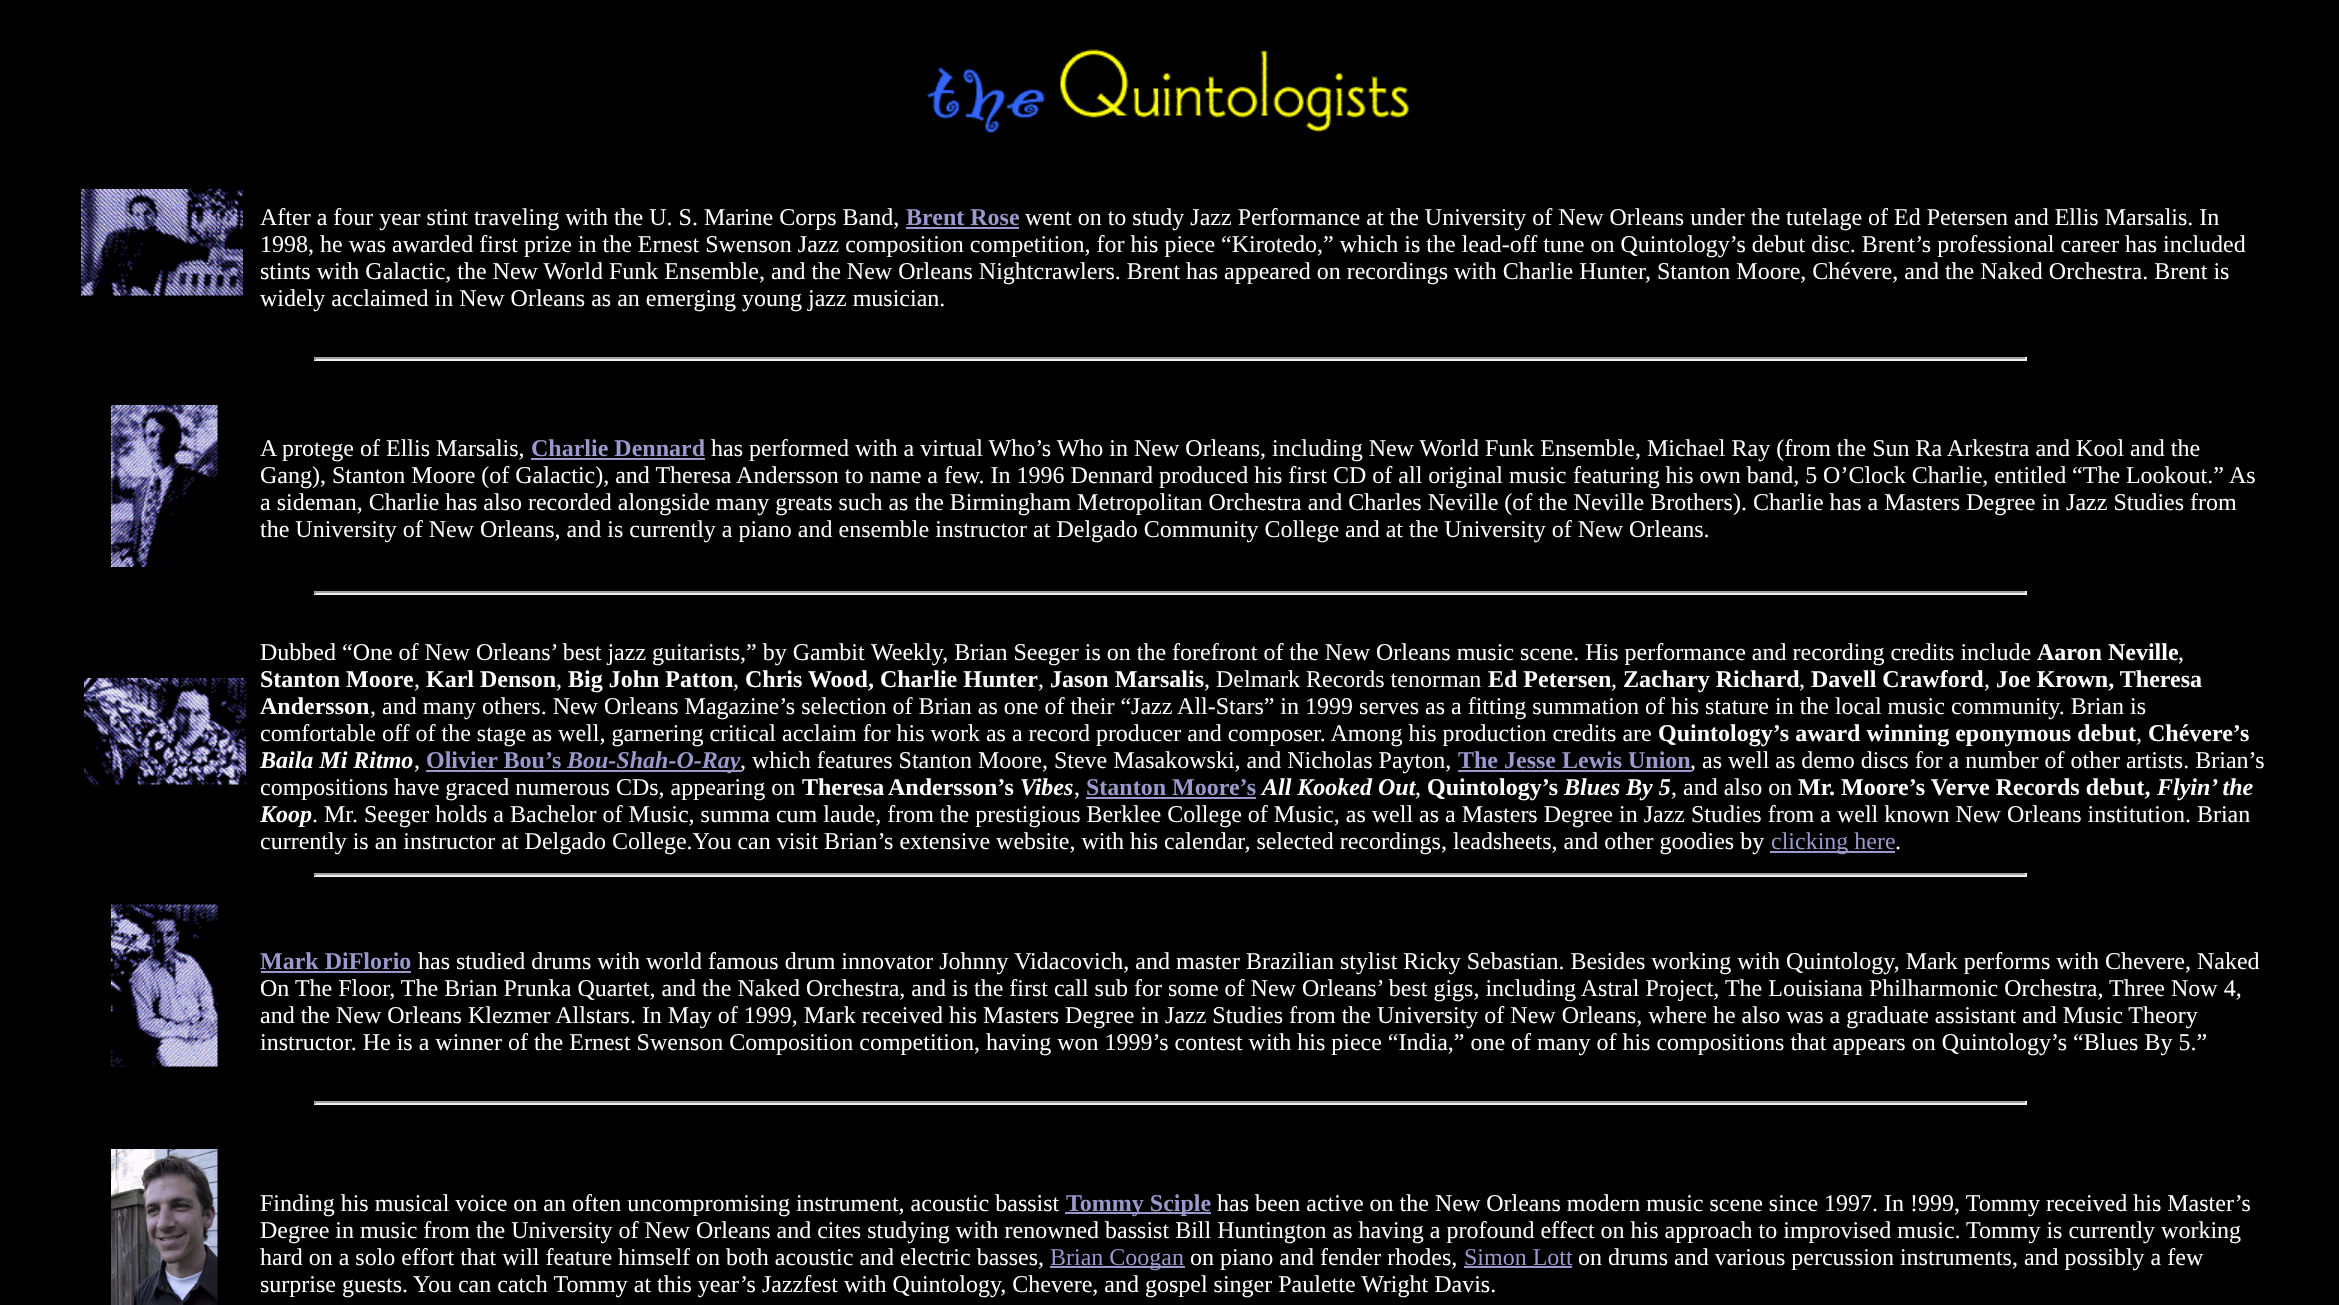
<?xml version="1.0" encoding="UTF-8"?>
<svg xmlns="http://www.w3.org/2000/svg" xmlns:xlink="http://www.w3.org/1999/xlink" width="2339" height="1305">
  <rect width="100%" height="100%" fill="#000000" />
  <image x="926" y="49" width="483" height="85" xlink:href="image1.png" />
  <image x="81" y="189" width="162" height="107" xlink:href="image2.png" />
  <rect x="906" y="227" width="113" height="2" fill="#9999cc" />
  <rect x="314" y="357" width="1713" height="2" fill="#9f9f9f" />
  <rect x="2025" y="357" width="2" height="3" fill="#eeeeee" />
  <rect x="314" y="359" width="1713" height="2" fill="#eeeeee" />
  <rect x="314" y="357" width="2" height="3" fill="#9f9f9f" />
  <image x="111" y="405" width="107" height="162" xlink:href="image3.png" />
  <rect x="531" y="458" width="174" height="2" fill="#9999cc" />
  <rect x="314" y="591" width="1713" height="2" fill="#9f9f9f" />
  <rect x="2025" y="591" width="2" height="3" fill="#eeeeee" />
  <rect x="314" y="593" width="1713" height="2" fill="#eeeeee" />
  <rect x="314" y="591" width="2" height="3" fill="#9f9f9f" />
  <image x="84" y="678" width="162" height="107" xlink:href="image4.png" />
  <rect x="426" y="770" width="315" height="2" fill="#9999cc" />
  <rect x="1458" y="770" width="233" height="2" fill="#9999cc" />
  <rect x="1086" y="797" width="170" height="2" fill="#9999cc" />
  <rect x="1770" y="851" width="125" height="2" fill="#9999cc" />
  <rect x="314" y="873" width="1713" height="2" fill="#9f9f9f" />
  <rect x="2025" y="873" width="2" height="3" fill="#eeeeee" />
  <rect x="314" y="875" width="1713" height="2" fill="#eeeeee" />
  <rect x="314" y="873" width="2" height="3" fill="#9f9f9f" />
  <image x="111" y="904" width="107" height="163" xlink:href="image5.png" />
  <rect x="261" y="971" width="150" height="2" fill="#9999cc" />
  <rect x="314" y="1101" width="1713" height="2" fill="#9f9f9f" />
  <rect x="2025" y="1101" width="2" height="3" fill="#eeeeee" />
  <rect x="314" y="1103" width="1713" height="2" fill="#eeeeee" />
  <rect x="314" y="1101" width="2" height="3" fill="#9f9f9f" />
  <image x="111" y="1149" width="107" height="156" xlink:href="image6.png" />
  <rect x="1065" y="1212" width="146" height="2" fill="#9999cc" />
  <rect x="1050" y="1266" width="135" height="2" fill="#9999cc" />
  <rect x="1464" y="1266" width="108" height="2" fill="#9999cc" />
  <text x="260" y="225" style="font-family: Liberation Serif; font-size: 24px; fill: #ffffff">After a four year stint traveling with the U. S. Marine Corps Band,</text>
  <text x="906" y="225" style="font-family: Liberation Serif; font-size: 24px; font-weight: bold; fill: #9999cc">Brent Rose</text>
  <text x="1025" y="225" style="font-family: Liberation Serif; font-size: 24px; fill: #ffffff">went on to study Jazz Performance at the University of New Orleans under the tutelage of Ed Petersen and Ellis Marsalis. In</text>
  <text x="260" y="252" style="font-family: Liberation Serif; font-size: 24px; fill: #ffffff">1998, he was awarded first prize in the Ernest Swenson Jazz composition competition, for his piece “Kirotedo,” which is the lead-off tune on Quintology’s debut disc. Brent’s professional career has included</text>
  <text x="260" y="279" style="font-family: Liberation Serif; font-size: 24px; fill: #ffffff">stints with Galactic, the New World Funk Ensemble, and the New Orleans Nightcrawlers. Brent has appeared on recordings with Charlie Hunter, Stanton Moore, Chévere, and the Naked Orchestra. Brent is</text>
  <text x="260" y="306" style="font-family: Liberation Serif; font-size: 24px; fill: #ffffff">widely acclaimed in New Orleans as an emerging young jazz musician.</text>
  <text x="260" y="456" style="font-family: Liberation Serif; font-size: 24px; fill: #ffffff">A protege of Ellis Marsalis,</text>
  <text x="531" y="456" style="font-family: Liberation Serif; font-size: 24px; font-weight: bold; fill: #9999cc">Charlie Dennard</text>
  <text x="711" y="456" style="font-family: Liberation Serif; font-size: 24px; fill: #ffffff">has performed with a virtual Who’s Who in New Orleans, including New World Funk Ensemble, Michael Ray (from the Sun Ra Arkestra and Kool and the</text>
  <text x="260" y="483" style="font-family: Liberation Serif; font-size: 24px; fill: #ffffff">Gang), Stanton Moore (of Galactic), and Theresa Andersson to name a few. In 1996 Dennard produced his first CD of all original music</text>
  <text x="1573" y="483" word-spacing="-0.1" style="font-family: Liberation Serif; font-size: 24px; fill: #ffffff">featuring his own band, 5 O’Clock Charlie, entitled “The Lookout.”</text>
  <text x="2229" y="483" style="font-family: Liberation Serif; font-size: 24px; fill: #ffffff">As</text>
  <text x="260" y="510" style="font-family: Liberation Serif; font-size: 24px; fill: #ffffff">a sideman, Charlie has also recorded alongside many greats such as the Birmingham Metropolitan Orchestra and Charles Neville (of the Neville Brothers). Charlie has a Masters Degree in Jazz Studies from</text>
  <text x="260" y="537" style="font-family: Liberation Serif; font-size: 24px; fill: #ffffff">the University of New Orleans, and is currently a piano and ensemble instructor at Delgado Community College and at the University of New Orleans.</text>
  <text x="260" y="660" style="font-family: Liberation Serif; font-size: 24px; fill: #ffffff">Dubbed “One of New Orleans’ best jazz guitarists,” by Gambit</text>
  <text x="871" y="660" style="font-family: Liberation Serif; font-size: 24px; fill: #ffffff">Weekly, Brian Seeger is on the forefront of the New Orleans music scene. His performance and recording credits include</text>
  <text x="2037" y="660" style="font-family: Liberation Serif; font-size: 24px; font-weight: bold; fill: #ffffff">Aaron Neville</text>
  <text x="2178" y="660" style="font-family: Liberation Serif; font-size: 24px; fill: #ffffff">,</text>
  <text x="260" y="687" style="font-family: Liberation Serif; font-size: 24px; font-weight: bold; fill: #ffffff">Stanton Moore</text>
  <text x="414" y="687" style="font-family: Liberation Serif; font-size: 24px; fill: #ffffff">,</text>
  <text x="426" y="687" style="font-family: Liberation Serif; font-size: 24px; font-weight: bold; fill: #ffffff">Karl Denson</text>
  <text x="556" y="687" style="font-family: Liberation Serif; font-size: 24px; fill: #ffffff">,</text>
  <text x="568" y="687" style="font-family: Liberation Serif; font-size: 24px; font-weight: bold; fill: #ffffff">Big John Patton</text>
  <text x="733" y="687" style="font-family: Liberation Serif; font-size: 24px; fill: #ffffff">,</text>
  <text x="745" y="687" style="font-family: Liberation Serif; font-size: 24px; font-weight: bold; fill: #ffffff">Chris Wood, Charlie Hunter</text>
  <text x="1038" y="687" style="font-family: Liberation Serif; font-size: 24px; fill: #ffffff">,</text>
  <text x="1050" y="687" style="font-family: Liberation Serif; font-size: 24px; font-weight: bold; fill: #ffffff">Jason Marsalis</text>
  <text x="1204" y="687" style="font-family: Liberation Serif; font-size: 24px; fill: #ffffff">, Delmark Records tenorman</text>
  <text x="1488" y="687" style="font-family: Liberation Serif; font-size: 24px; font-weight: bold; fill: #ffffff">Ed Petersen</text>
  <text x="1611" y="687" style="font-family: Liberation Serif; font-size: 24px; fill: #ffffff">,</text>
  <text x="1623" y="687" style="font-family: Liberation Serif; font-size: 24px; font-weight: bold; fill: #ffffff">Zachary Richard</text>
  <text x="1799" y="687" style="font-family: Liberation Serif; font-size: 24px; fill: #ffffff">,</text>
  <text x="1811" y="687" style="font-family: Liberation Serif; font-size: 24px; font-weight: bold; fill: #ffffff">Davell Crawford</text>
  <text x="1984" y="687" style="font-family: Liberation Serif; font-size: 24px; fill: #ffffff">,</text>
  <text x="1996" y="687" style="font-family: Liberation Serif; font-size: 24px; font-weight: bold; fill: #ffffff">Joe Krown, Theresa</text>
  <text x="260" y="714" style="font-family: Liberation Serif; font-size: 24px; font-weight: bold; fill: #ffffff">Andersson</text>
  <text x="370" y="714" style="font-family: Liberation Serif; font-size: 24px; fill: #ffffff">, and many others. New Orleans Magazine’s selection of Brian as one of their “Jazz All-Stars” in 1999 serves as a fitting summation of his stature in the local music community. Brian is</text>
  <text x="260" y="741" style="font-family: Liberation Serif; font-size: 24px; fill: #ffffff">comfortable off of the stage as well, garnering critical acclaim for his work as a record producer and composer. Among his production credits are</text>
  <text x="1658" y="741" style="font-family: Liberation Serif; font-size: 24px; font-weight: bold; fill: #ffffff">Quintology’s award winning eponymous debut</text>
  <text x="2136" y="741" style="font-family: Liberation Serif; font-size: 24px; fill: #ffffff">,</text>
  <text x="2148" y="741" style="font-family: Liberation Serif; font-size: 24px; font-weight: bold; fill: #ffffff">Chévere’s</text>
  <text x="260" y="768" style="font-family: Liberation Serif; font-size: 24px; font-weight: bold; font-style: italic; fill: #ffffff">Baila Mi Ritmo</text>
  <text x="414" y="768" style="font-family: Liberation Serif; font-size: 24px; fill: #ffffff">,</text>
  <text x="426" y="768" style="font-family: Liberation Serif; font-size: 24px; font-weight: bold; fill: #9999cc">Olivier Bou’s</text>
  <text x="567" y="768" style="font-family: Liberation Serif; font-size: 24px; font-weight: bold; font-style: italic; fill: #9999cc">Bou-Shah-O-Ray</text>
  <text x="740" y="768" style="font-family: Liberation Serif; font-size: 24px; fill: #ffffff">, which features Stanton Moore, Steve Masakowski, and Nicholas Payton,</text>
  <text x="1458" y="768" style="font-family: Liberation Serif; font-size: 24px; font-weight: bold; fill: #9999cc">The Jesse Lewis Union</text>
  <text x="1690" y="768" style="font-family: Liberation Serif; font-size: 24px; fill: #ffffff">, as well as demo discs for a number of other artists. Brian’s</text>
  <text x="260" y="795" style="font-family: Liberation Serif; font-size: 24px; fill: #ffffff">compositions have graced numerous CDs, appearing on</text>
  <text x="802" y="795" style="font-family: Liberation Serif; font-size: 24px; font-weight: bold; fill: #ffffff">Theresa</text>
  <text x="888" y="795" style="font-family: Liberation Serif; font-size: 24px; font-weight: bold; fill: #ffffff">Andersson’s</text>
  <text x="1020" y="795" style="font-family: Liberation Serif; font-size: 24px; font-weight: bold; font-style: italic; fill: #ffffff">Vibes</text>
  <text x="1074" y="795" style="font-family: Liberation Serif; font-size: 24px; fill: #ffffff">,</text>
  <text x="1086" y="795" style="font-family: Liberation Serif; font-size: 24px; font-weight: bold; fill: #9999cc">Stanton Moore’s</text>
  <text x="1262" y="795" style="font-family: Liberation Serif; font-size: 24px; font-weight: bold; font-style: italic; fill: #ffffff">All Kooked Out</text>
  <text x="1415" y="795" style="font-family: Liberation Serif; font-size: 24px; fill: #ffffff">,</text>
  <text x="1427" y="795" style="font-family: Liberation Serif; font-size: 24px; font-weight: bold; fill: #ffffff">Quintology’s</text>
  <text x="1564" y="795" style="font-family: Liberation Serif; font-size: 24px; font-weight: bold; font-style: italic; fill: #ffffff">Blues By 5</text>
  <text x="1671" y="795" style="font-family: Liberation Serif; font-size: 24px; fill: #ffffff">, and also on</text>
  <text x="1798" y="795" style="font-family: Liberation Serif; font-size: 24px; font-weight: bold; fill: #ffffff">Mr. Moore’s Verve Records debut,</text>
  <text x="2157" y="795" style="font-family: Liberation Serif; font-size: 24px; font-weight: bold; font-style: italic; fill: #ffffff">Flyin’ the</text>
  <text x="260" y="822" style="font-family: Liberation Serif; font-size: 24px; font-weight: bold; font-style: italic; fill: #ffffff">Koop</text>
  <text x="312" y="822" style="font-family: Liberation Serif; font-size: 24px; fill: #ffffff">. Mr. Seeger holds a Bachelor of Music, summa cum laude, from the prestigious Berklee College of Music, as well as a Masters Degree in Jazz Studies from a well known New Orleans institution. Brian</text>
  <text x="260" y="849" style="font-family: Liberation Serif; font-size: 24px; fill: #ffffff">currently is an instructor at Delgado College.You can visit Brian’s extensive website, with his calendar, selected recordings, leadsheets, and other goodies by</text>
  <text x="1771" y="849" style="font-family: Liberation Serif; font-size: 24px; fill: #9999cc">clicking here</text>
  <text x="1895" y="849" style="font-family: Liberation Serif; font-size: 24px; fill: #ffffff">.</text>
  <text x="260" y="969" style="font-family: Liberation Serif; font-size: 24px; font-weight: bold; fill: #9999cc">Mark DiFlorio</text>
  <text x="418" y="969" style="font-family: Liberation Serif; font-size: 24px; fill: #ffffff">has studied drums with world famous drum innovator Johnny Vidacovich, and master Brazilian stylist Ricky Sebastian. Besides working with Quintology, Mark performs with Chevere, Naked</text>
  <text x="260" y="996" style="font-family: Liberation Serif; font-size: 24px; fill: #ffffff">On The Floor, The Brian Prunka Quartet, and the Naked Orchestra, and is the first call sub for some of New Orleans’ best gigs, including Astral Project, The Louisiana Philharmonic Orchestra, Three Now 4,</text>
  <text x="260" y="1023" style="font-family: Liberation Serif; font-size: 24px; fill: #ffffff">and the New Orleans Klezmer Allstars. In May of 1999, Mark received his Masters Degree in Jazz Studies from the University of New Orleans, where he also was a graduate assistant and Music Theory</text>
  <text x="260" y="1050" style="font-family: Liberation Serif; font-size: 24px; fill: #ffffff">instructor. He is a winner of the Ernest Swenson Composition competition, having won 1999’s contest with his piece “India,” one of many of his compositions that appears on Quintology’s “Blues By 5.”</text>
  <text x="260" y="1211" style="font-family: Liberation Serif; font-size: 24px; fill: #ffffff">Finding his musical voice on an often uncompromising instrument, acoustic bassist</text>
  <text x="1066" y="1211" style="font-family: Liberation Serif; font-size: 24px; font-weight: bold; fill: #9999cc">Tommy Sciple</text>
  <text x="1217" y="1211" style="font-family: Liberation Serif; font-size: 24px; fill: #ffffff">has been active on the New Orleans modern music scene since 1997. In !999, Tommy received his Master’s</text>
  <text x="260" y="1238" style="font-family: Liberation Serif; font-size: 24px; fill: #ffffff">Degree in music from the University of New Orleans and cites studying with renowned bassist Bill Huntington as having a profound effect on his approach to improvised music. Tommy is currently working</text>
  <text x="260" y="1265" style="font-family: Liberation Serif; font-size: 24px; fill: #ffffff">hard on a solo effort that will feature himself on both acoustic and electric basses,</text>
  <text x="1050" y="1265" style="font-family: Liberation Serif; font-size: 24px; fill: #9999cc">Brian Coogan</text>
  <text x="1190" y="1265" style="font-family: Liberation Serif; font-size: 24px; fill: #ffffff">on piano and fender rhodes,</text>
  <text x="1464" y="1265" style="font-family: Liberation Serif; font-size: 24px; fill: #9999cc">Simon Lott</text>
  <text x="1578" y="1265" style="font-family: Liberation Serif; font-size: 24px; fill: #ffffff">on drums and various percussion instruments, and possibly a few</text>
  <text x="260" y="1292" style="font-family: Liberation Serif; font-size: 24px; fill: #ffffff">surprise guests.</text>
  <text x="413" y="1292" style="font-family: Liberation Serif; font-size: 24px; fill: #ffffff">You can catch Tommy at this year’s Jazzfest with Quintology, Chevere, and gospel singer Paulette Wright Davis.</text>
</svg>
